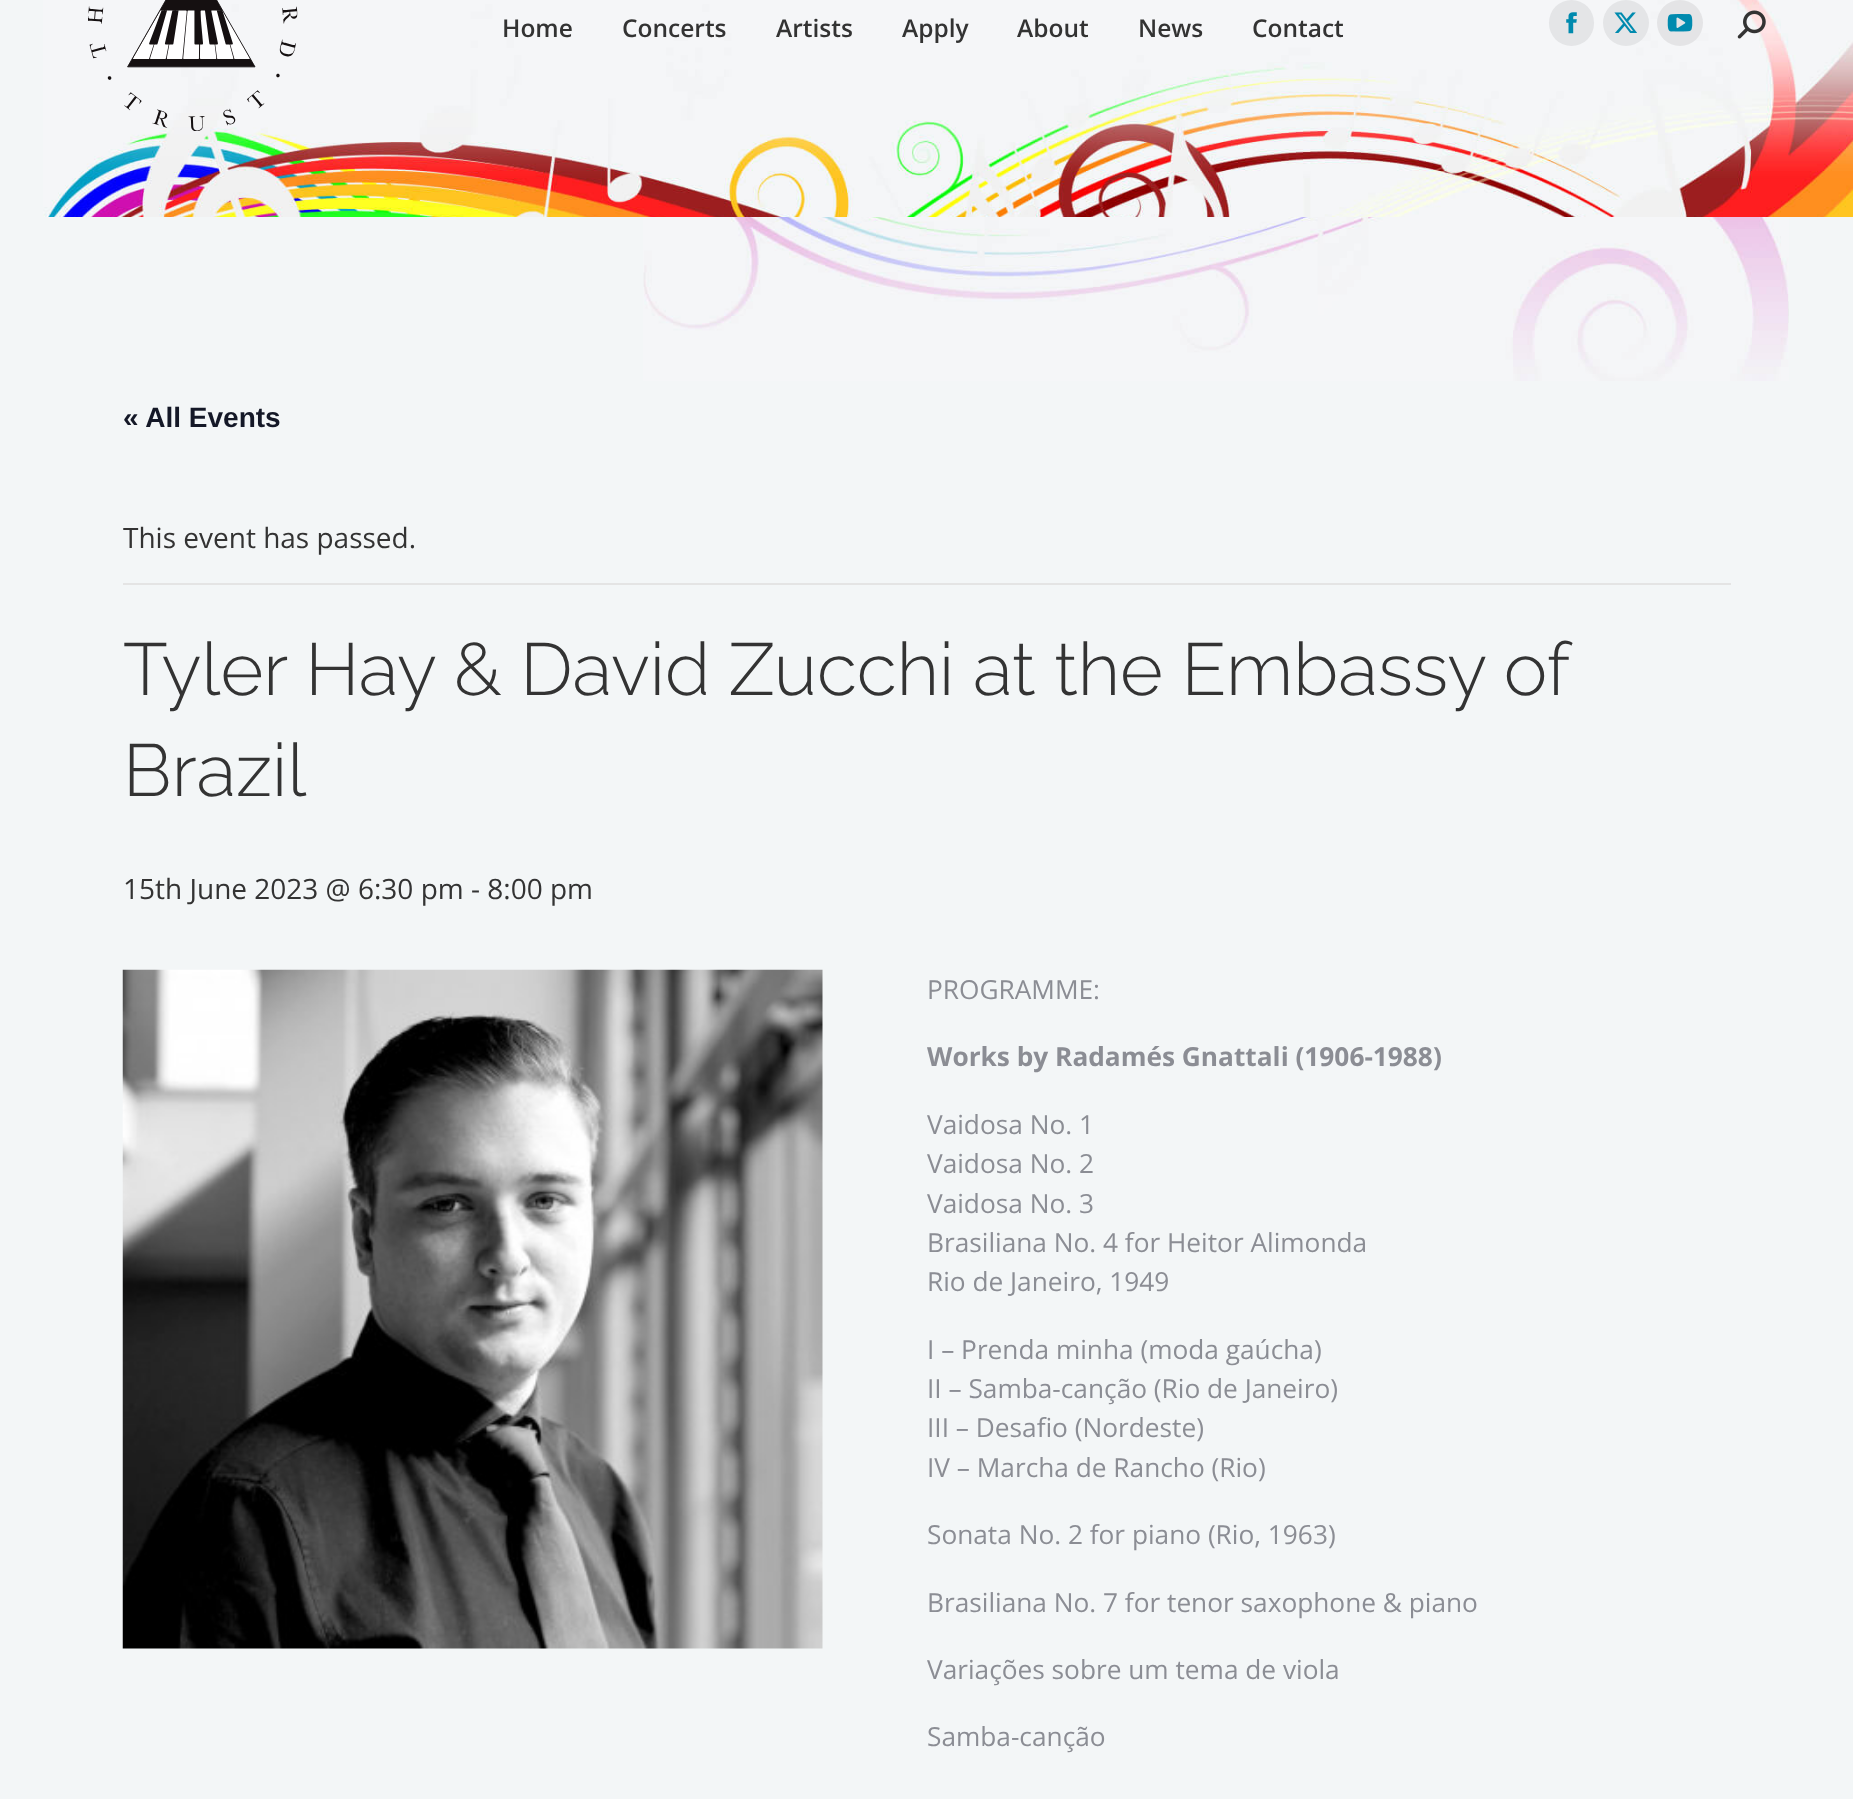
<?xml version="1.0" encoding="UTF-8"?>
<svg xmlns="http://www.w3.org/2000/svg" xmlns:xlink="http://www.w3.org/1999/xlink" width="1853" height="1799">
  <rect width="100%" height="100%" fill="#f3f6f7" />
  <image x="43" y="0" width="1810" height="217" xlink:href="image1.png" />
  <image x="88" y="0" width="210" height="131" xlink:href="image2.png" />
  <rect x="1549" width="45" height="46" rx="22.5" fill="#e4e5e7" />
  <image x="1566" y="12" width="11" height="22" xlink:href="image3.png" />
  <circle cx="1626" cy="23" r="23" fill="#e4e5e7" />
  <image x="1614" y="12" width="23" height="21" xlink:href="image4.png" />
  <circle cx="1680" cy="23" r="23" fill="#e4e4e6" />
  <image x="1667" y="14" width="26" height="18" xlink:href="image5.png" />
  <image x="1737" y="10" width="29" height="29" xlink:href="image6.png" />
  <image x="643" y="217" width="1146" height="164" xlink:href="image7.png" />
  <rect x="123" y="583" width="1608" height="2" fill="#e4e4e4" />
  <image x="122" y="969" width="701" height="680" xlink:href="image8.png" />
  <text x="502" y="37" style="font-family: Open Sans; font-size: 24.5px; font-weight: 600; fill: #333333">Home</text>
  <text x="622" y="37" style="font-family: Open Sans; font-size: 24.5px; font-weight: 600; fill: #333333">Concerts</text>
  <text x="776" y="37" style="font-family: Open Sans; font-size: 24.5px; font-weight: 600; fill: #333333">Artists</text>
  <text x="902" y="37" style="font-family: Open Sans; font-size: 24.5px; font-weight: 600; fill: #333333">Apply</text>
  <text x="1017" y="37" style="font-family: Open Sans; font-size: 24.5px; font-weight: 600; fill: #333333">About</text>
  <text x="1138" y="37" style="font-family: Open Sans; font-size: 24.5px; font-weight: 600; fill: #333333">News</text>
  <text x="1252" y="37" style="font-family: Open Sans; font-size: 24.5px; font-weight: 600; fill: #333333">Contact</text>
  <text x="123" y="427" style="font-family: Liberation Sans; font-size: 28px; font-weight: bold; fill: #141827">« All Events</text>
  <text x="123" y="548" style="font-family: Open Sans; font-size: 28px; fill: #333333">This event has passed.</text>
  <text x="123" y="695" word-spacing="-0.25" style="font-family: Raleway; font-size: 73.5px; font-weight: 300; fill: #333333">Tyler Hay &amp; David Zucchi at the Embassy of</text>
  <text x="123" y="796" style="font-family: Raleway; font-size: 73.5px; font-weight: 300; fill: #333333">Brazil</text>
  <text x="123" y="899" style="font-family: Open Sans; font-size: 28px; fill: #333333">15th June 2023 @ 6:30 pm - 8:00 pm</text>
  <text x="927" y="999" style="font-family: Open Sans; font-size: 26.25px; fill: #8b8d94">PROGRAMME:</text>
  <text x="927" y="1066" style="font-family: Open Sans; font-size: 26.25px; font-weight: bold; fill: #8b8d94">Works by Radamés Gnattali (1906-1988)</text>
  <text x="927" y="1134" style="font-family: Open Sans; font-size: 26.25px; fill: #8b8d94">Vaidosa No. 1</text>
  <text x="927" y="1173" style="font-family: Open Sans; font-size: 26.25px; fill: #8b8d94">Vaidosa No. 2</text>
  <text x="927" y="1213" style="font-family: Open Sans; font-size: 26.25px; fill: #8b8d94">Vaidosa No. 3</text>
  <text x="927" y="1252" style="font-family: Open Sans; font-size: 26.25px; fill: #8b8d94">Brasiliana No. 4 for Heitor Alimonda</text>
  <text x="927" y="1291" style="font-family: Open Sans; font-size: 26.25px; fill: #8b8d94">Rio de Janeiro, 1949</text>
  <text x="927" y="1359" style="font-family: Open Sans; font-size: 26.25px; fill: #8b8d94">I – Prenda minha (moda gaúcha)</text>
  <text x="927" y="1398" style="font-family: Open Sans; font-size: 26.25px; fill: #8b8d94">II – Samba-canção (Rio de Janeiro)</text>
  <text x="927" y="1437" style="font-family: Open Sans; font-size: 26.25px; fill: #8b8d94">III – Desafio (Nordeste)</text>
  <text x="927" y="1477" style="font-family: Open Sans; font-size: 26.25px; fill: #8b8d94">IV – Marcha de Rancho (Rio)</text>
  <text x="927" y="1544" style="font-family: Open Sans; font-size: 26.25px; fill: #8b8d94">Sonata No. 2 for piano (Rio, 1963)</text>
  <text x="927" y="1612" style="font-family: Open Sans; font-size: 26.25px; fill: #8b8d94">Brasiliana No. 7 for tenor saxophone &amp; piano</text>
  <text x="927" y="1679" style="font-family: Open Sans; font-size: 26.25px; fill: #8b8d94">Variações sobre um tema de viola</text>
  <text x="927" y="1746" style="font-family: Open Sans; font-size: 26.25px; fill: #8b8d94">Samba-canção</text>
</svg>
